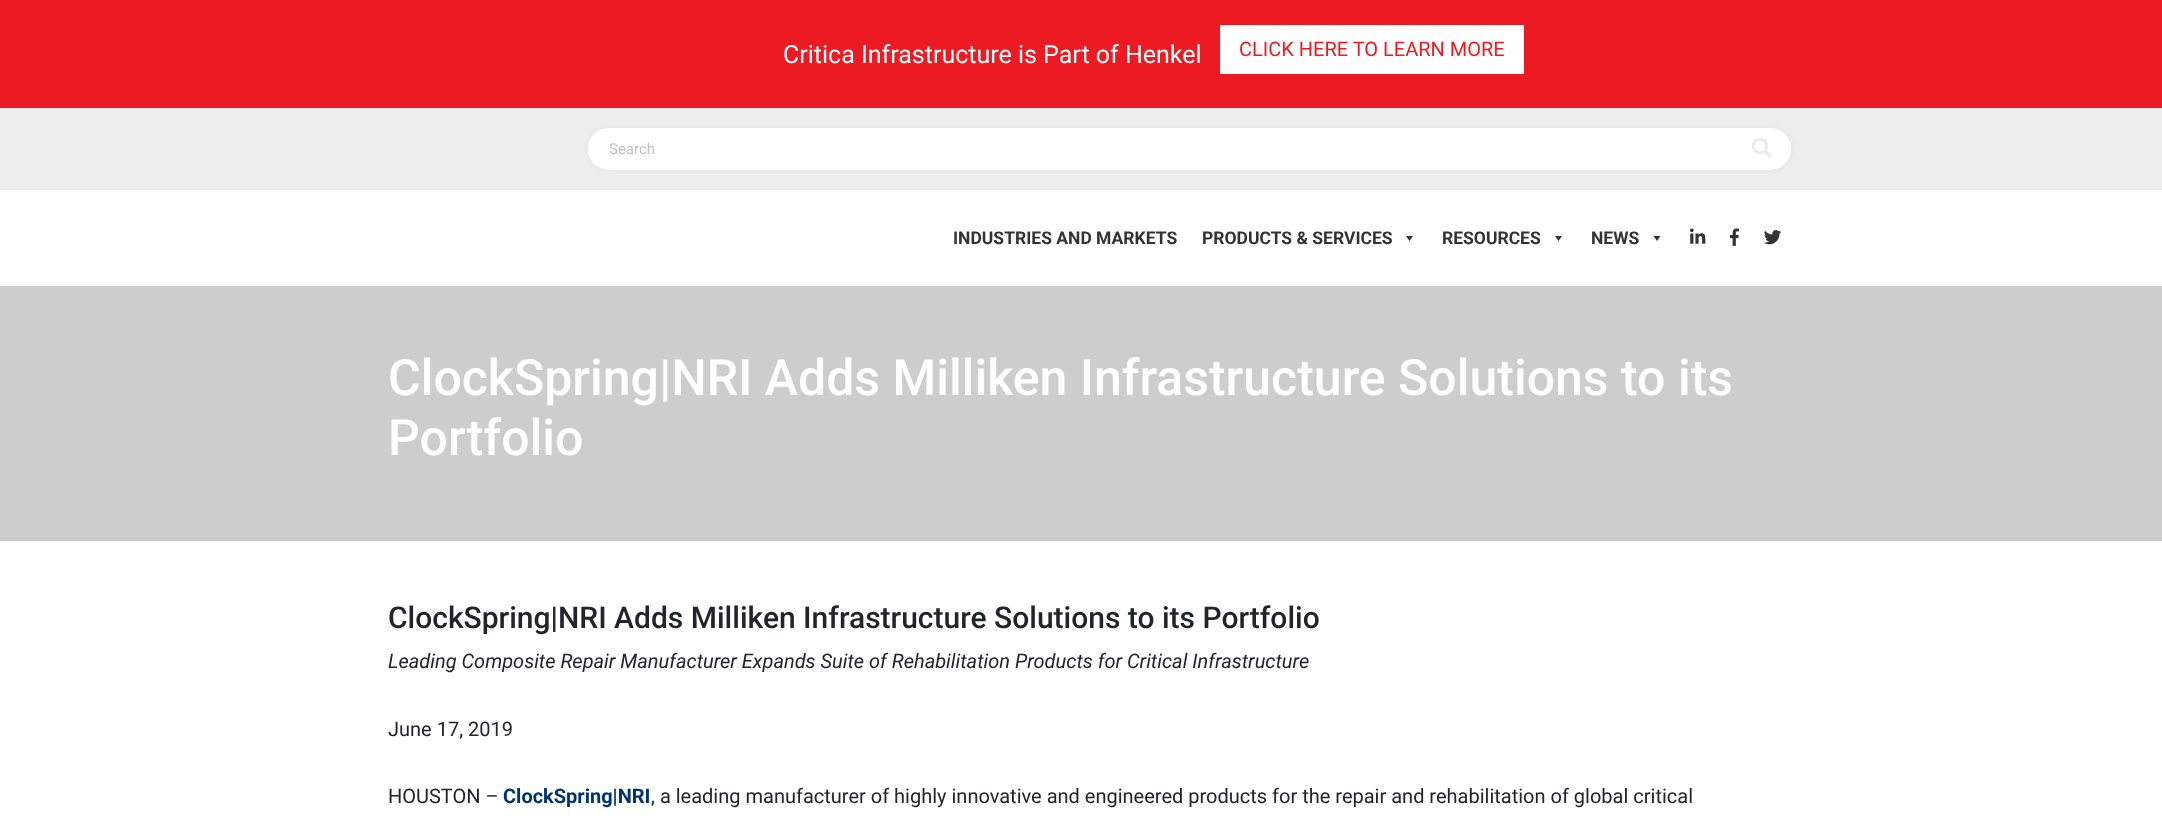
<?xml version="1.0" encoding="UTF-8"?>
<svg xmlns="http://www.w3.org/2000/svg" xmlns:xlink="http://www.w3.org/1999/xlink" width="2162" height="825">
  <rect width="100%" height="100%" fill="#ffffff" />
  <rect width="2162" height="108" fill="#ec1b23" />
  <rect x="1220" y="25" width="304" height="49" fill="#ffffff" />
  <rect y="108" width="2162" height="82" fill="#ededed" />
  <rect x="585" y="125" width="1209" height="48" rx="24" fill="#ffffff" />
  <rect x="586.5" y="126.5" width="1206" height="45" rx="22.5" fill="none" stroke="#989898" stroke-opacity="0.2" stroke-width="3" />
  <image x="1751" y="138" width="20" height="20" xlink:href="image1.png" />
  <path d="M 1413 236 l -3.5 5 l -3.5 -5 z" fill="#333333" />
  <path d="M 1562 236 l -3.5 5 l -3.5 -5 z" fill="#333333" />
  <path d="M 1660.5 236 l -3.5 5 l -3.5 -5 z" fill="#333333" />
  <image x="1690" y="228" width="16" height="16" xlink:href="image2.png" />
  <image x="1730" y="228" width="10" height="18" xlink:href="image3.png" />
  <image x="1764" y="230" width="18" height="15" xlink:href="image4.png" />
  <rect y="286" width="2162" height="255" fill="#cdcdcd" />
  <text x="783" y="63" style="font-family: Roboto; font-size: 25px; fill: #ffffff">Critica Infrastructure is Part of Henkel</text>
  <text x="1239" y="56" style="font-family: Roboto; font-size: 20px; fill: #ec1b23">CLICK HERE TO LEARN MORE</text>
  <text x="609" y="154" style="font-family: Roboto; font-size: 15px; fill: #c1c1c1">Search</text>
  <text x="953" y="244" style="font-family: Roboto; font-size: 17.5px; font-weight: bold; fill: #333333">INDUSTRIES AND MARKETS</text>
  <text x="1202" y="244" style="font-family: Roboto; font-size: 17.5px; font-weight: bold; fill: #333333">PRODUCTS &amp; SERVICES</text>
  <text x="1442" y="244" style="font-family: Roboto; font-size: 17.5px; font-weight: bold; fill: #333333">RESOURCES</text>
  <text x="1591" y="244" style="font-family: Roboto; font-size: 17.5px; font-weight: bold; fill: #333333">NEWS</text>
  <text x="388" y="395" style="font-family: Roboto; font-size: 50px; font-weight: 500; fill: #ffffff">ClockSpring|NRI Adds Milliken Infrastructure Solutions to its</text>
  <text x="388" y="455" style="font-family: Roboto; font-size: 50px; font-weight: 500; fill: #ffffff">Portfolio</text>
  <text x="388" y="628" style="font-family: Roboto; font-size: 30px; font-weight: 500; fill: #212529">ClockSpring|NRI Adds Milliken Infrastructure Solutions to its Portfolio</text>
  <text x="388" y="668" style="font-family: Roboto; font-size: 20px; font-style: italic; fill: #212529">Leading Composite Repair Manufacturer Expands Suite of Rehabilitation Products for Critical Infrastructure</text>
  <text x="388" y="736" style="font-family: Roboto; font-size: 20px; fill: #212529">June 17, 2019</text>
  <text x="388" y="803" style="font-family: Roboto; font-size: 20px; fill: #212529">HOUSTON –</text>
  <text x="503" y="803" style="font-family: Roboto; font-size: 20px; font-weight: bold; fill: #003471">ClockSpring|NRI</text>
  <text x="651" y="803" style="font-family: Roboto; font-size: 20px; fill: #212529">, a leading manufacturer of highly innovative and engineered products for the repair and rehabilitation of global critical</text>
</svg>
